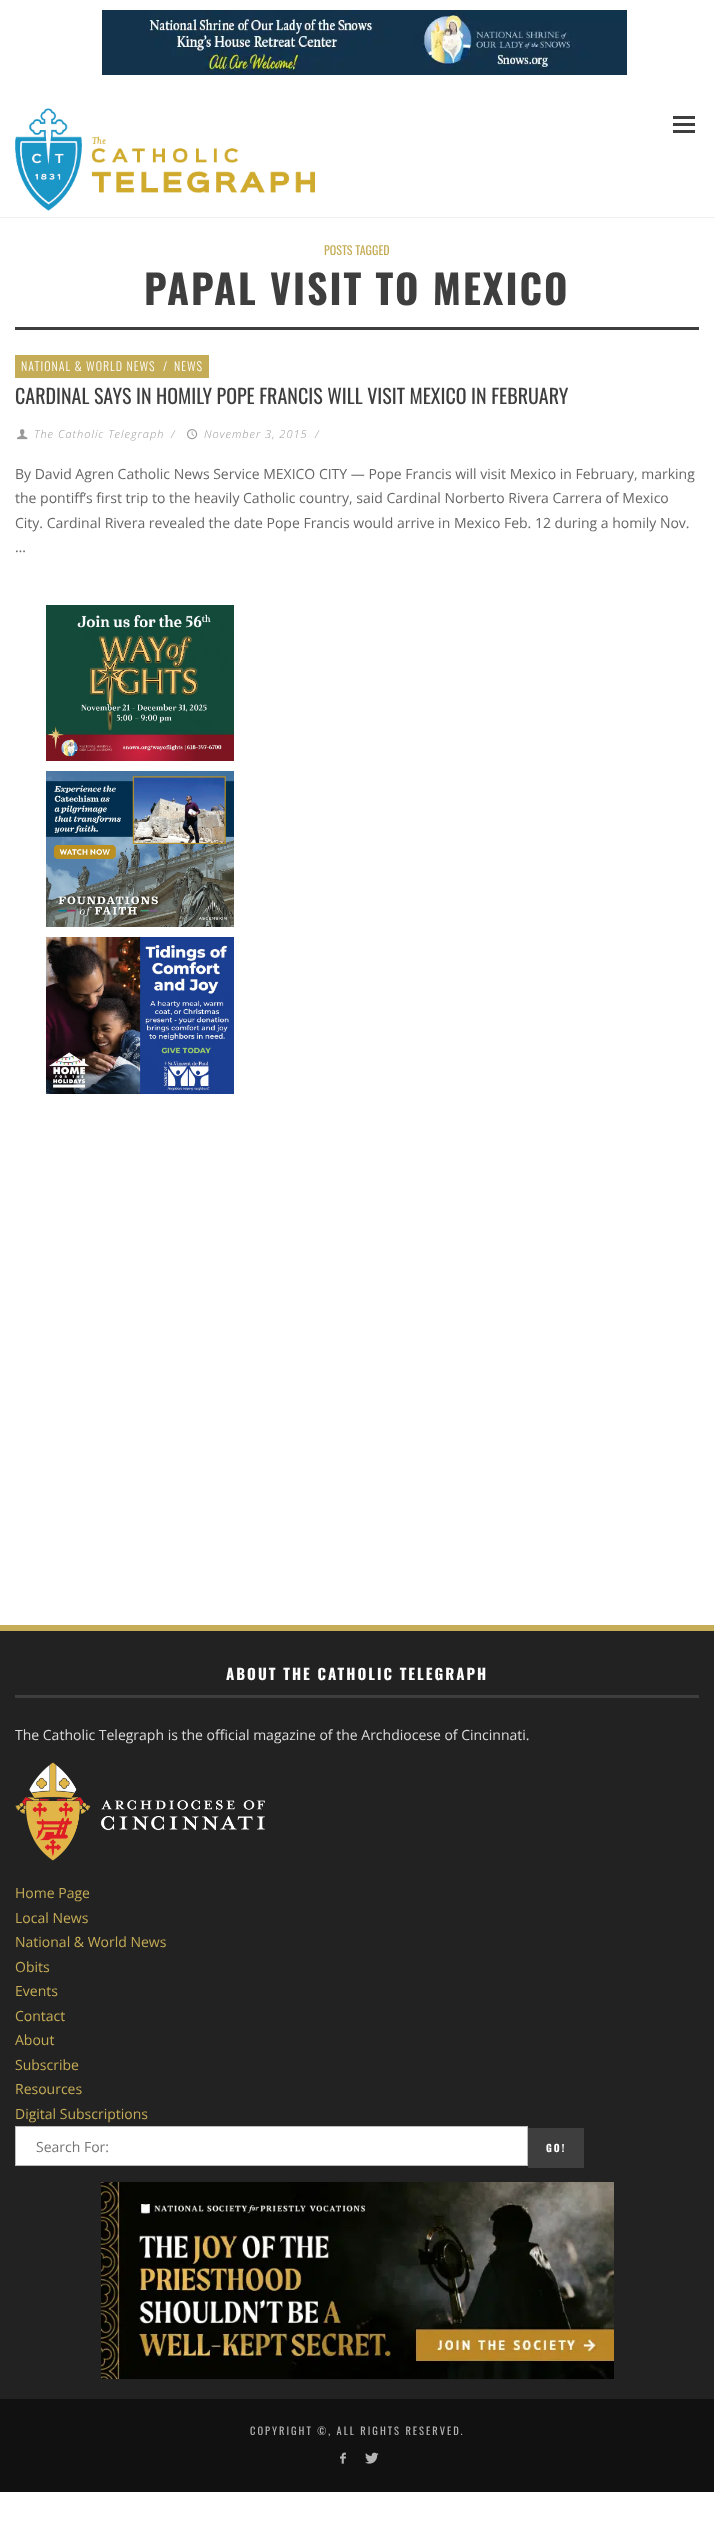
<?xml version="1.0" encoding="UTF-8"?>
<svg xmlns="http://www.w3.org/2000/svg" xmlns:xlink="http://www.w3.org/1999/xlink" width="714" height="2523">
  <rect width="100%" height="100%" fill="#ffffff" />
  <image x="102" y="10" width="525" height="65" xlink:href="image1.png" />
  <image x="15" y="108" width="300" height="103" xlink:href="image2.png" />
  <rect x="673" y="116" width="22" height="3" fill="#3e3e3e" />
  <rect x="673" y="123" width="22" height="3" fill="#3e3e3e" />
  <rect x="673" y="130" width="22" height="3" fill="#3e3e3e" />
  <rect y="217" width="714" height="1" fill="#eeeeee" />
  <rect x="15" y="327" width="684" height="3" fill="#3e3e3e" />
  <rect x="15" y="355" width="194" height="23" fill="#c5ac57" />
  <image x="17" y="429" width="11" height="11" xlink:href="image3.png" />
  <image x="187" y="429" width="11" height="11" xlink:href="image4.png" />
  <image x="46" y="605" width="188" height="156" xlink:href="image5.png" />
  <image x="46" y="771" width="188" height="156" xlink:href="image6.png" />
  <image x="46" y="937" width="188" height="157" xlink:href="image7.png" />
  <rect y="1631" width="714" height="768" fill="#222222" />
  <rect y="1625" width="714" height="6" fill="#c5ac57" />
  <rect x="15" y="1695" width="684" height="3" fill="#3e3e3e" />
  <image x="15" y="1762" width="250" height="99" xlink:href="image8.png" />
  <rect x="15.5" y="2126.5" width="512" height="39" fill="#ffffff" stroke="#bbbbbb" />
  <rect x="528" y="2128" width="56" height="40" fill="#3e3e3e" />
  <image x="101" y="2182" width="513" height="197" xlink:href="image9.png" />
  <rect y="2399" width="714" height="93" fill="#111111" />
  <image x="340" y="2452" width="6" height="12" xlink:href="image10.png" />
  <image x="365" y="2452" width="14" height="12" xlink:href="image11.png" />
  <text x="324" y="255" style="font-family: Oswald; font-size: 12px; fill: #c5ac57">POSTS TAGGED</text>
  <text x="144" y="305" style="font-family: Oswald; font-size: 40px; font-weight: bold; letter-spacing: 2px; fill: #3e3e3e">PAPAL VISIT TO MEXICO</text>
  <text x="21" y="371" style="font-family: Oswald; font-size: 12px; font-weight: 300; letter-spacing: 1px; fill: #ffffff">NATIONAL &amp; WORLD NEWS</text>
  <text x="163" y="371" style="font-family: Oswald; font-size: 12px; font-weight: 300; fill: #ffffff">/</text>
  <text x="174" y="371" style="font-family: Oswald; font-size: 12px; font-weight: 300; letter-spacing: 1px; fill: #ffffff">NEWS</text>
  <text x="15" y="404" style="font-family: Oswald; font-size: 20px; fill: #3e3e3e">CARDINAL SAYS IN HOMILY POPE FRANCIS WILL VISIT MEXICO IN FEBRUARY</text>
  <text x="34" y="438" style="font-family: Open Sans; font-size: 11px; font-weight: 300; font-style: italic; letter-spacing: 1px; fill: #999999">The Catholic Telegraph</text>
  <text x="171" y="438" style="font-family: Open Sans; font-size: 11px; font-weight: 300; font-style: italic; letter-spacing: 1px; fill: #999999">/</text>
  <text x="204" y="438" style="font-family: Open Sans; font-size: 11px; font-weight: 300; font-style: italic; letter-spacing: 1px; fill: #999999">November 3, 2015</text>
  <text x="315" y="438" style="font-family: Open Sans; font-size: 11px; font-weight: 300; font-style: italic; letter-spacing: 1px; fill: #999999">/</text>
  <text x="15" y="479" style="font-family: Open Sans; font-size: 14px; fill: #666666">By David Agren Catholic News Service MEXICO CITY — Pope Francis will visit Mexico in February, marking</text>
  <text x="15" y="503" style="font-family: Open Sans; font-size: 14px; fill: #666666">the pontiff’s first trip to the heavily Catholic country, said Cardinal Norberto Rivera Carrera of Mexico</text>
  <text x="15" y="528" style="font-family: Open Sans; font-size: 14px; fill: #666666">City. Cardinal Rivera revealed the date Pope Francis would arrive in Mexico Feb. 12 during a homily Nov.</text>
  <text x="15" y="552" style="font-family: Open Sans; font-size: 14px; fill: #666666">…</text>
  <text x="226" y="1680" style="font-family: Oswald; font-size: 15px; font-weight: bold; letter-spacing: 2px; fill: #ffffff">ABOUT THE CATHOLIC TELEGRAPH</text>
  <text x="15" y="1740" style="font-family: Open Sans; font-size: 14px; fill: #dcdcdc">The Catholic Telegraph is the official magazine of the Archdiocese of Cincinnati.</text>
  <text x="15" y="1898" style="font-family: Open Sans; font-size: 14px; fill: #c5ac57">Home Page</text>
  <text x="15" y="1923" style="font-family: Open Sans; font-size: 14px; fill: #c5ac57">Local News</text>
  <text x="15" y="1947" style="font-family: Open Sans; font-size: 14px; fill: #c5ac57">National &amp; World News</text>
  <text x="15" y="1972" style="font-family: Open Sans; font-size: 14px; fill: #c5ac57">Obits</text>
  <text x="15" y="1996" style="font-family: Open Sans; font-size: 14px; fill: #c5ac57">Events</text>
  <text x="15" y="2021" style="font-family: Open Sans; font-size: 14px; fill: #c5ac57">Contact</text>
  <text x="15" y="2045" style="font-family: Open Sans; font-size: 14px; fill: #c5ac57">About</text>
  <text x="15" y="2070" style="font-family: Open Sans; font-size: 14px; fill: #c5ac57">Subscribe</text>
  <text x="15" y="2094" style="font-family: Open Sans; font-size: 14px; fill: #c5ac57">Resources</text>
  <text x="15" y="2119" style="font-family: Open Sans; font-size: 14px; fill: #c5ac57">Digital Subscriptions</text>
  <text x="36" y="2152" style="font-family: Open Sans; font-size: 14px; fill: #757575">Search For:</text>
  <text x="546" y="2152" style="font-family: Oswald; font-size: 10px; font-weight: bold; letter-spacing: 2px; fill: #ffffff">GO!</text>
  <text x="250" y="2435" style="font-family: Oswald; font-size: 10.45px; letter-spacing: 2px; fill: #b4b4b4">COPYRIGHT ©, ALL RIGHTS RESERVED.</text>
</svg>
